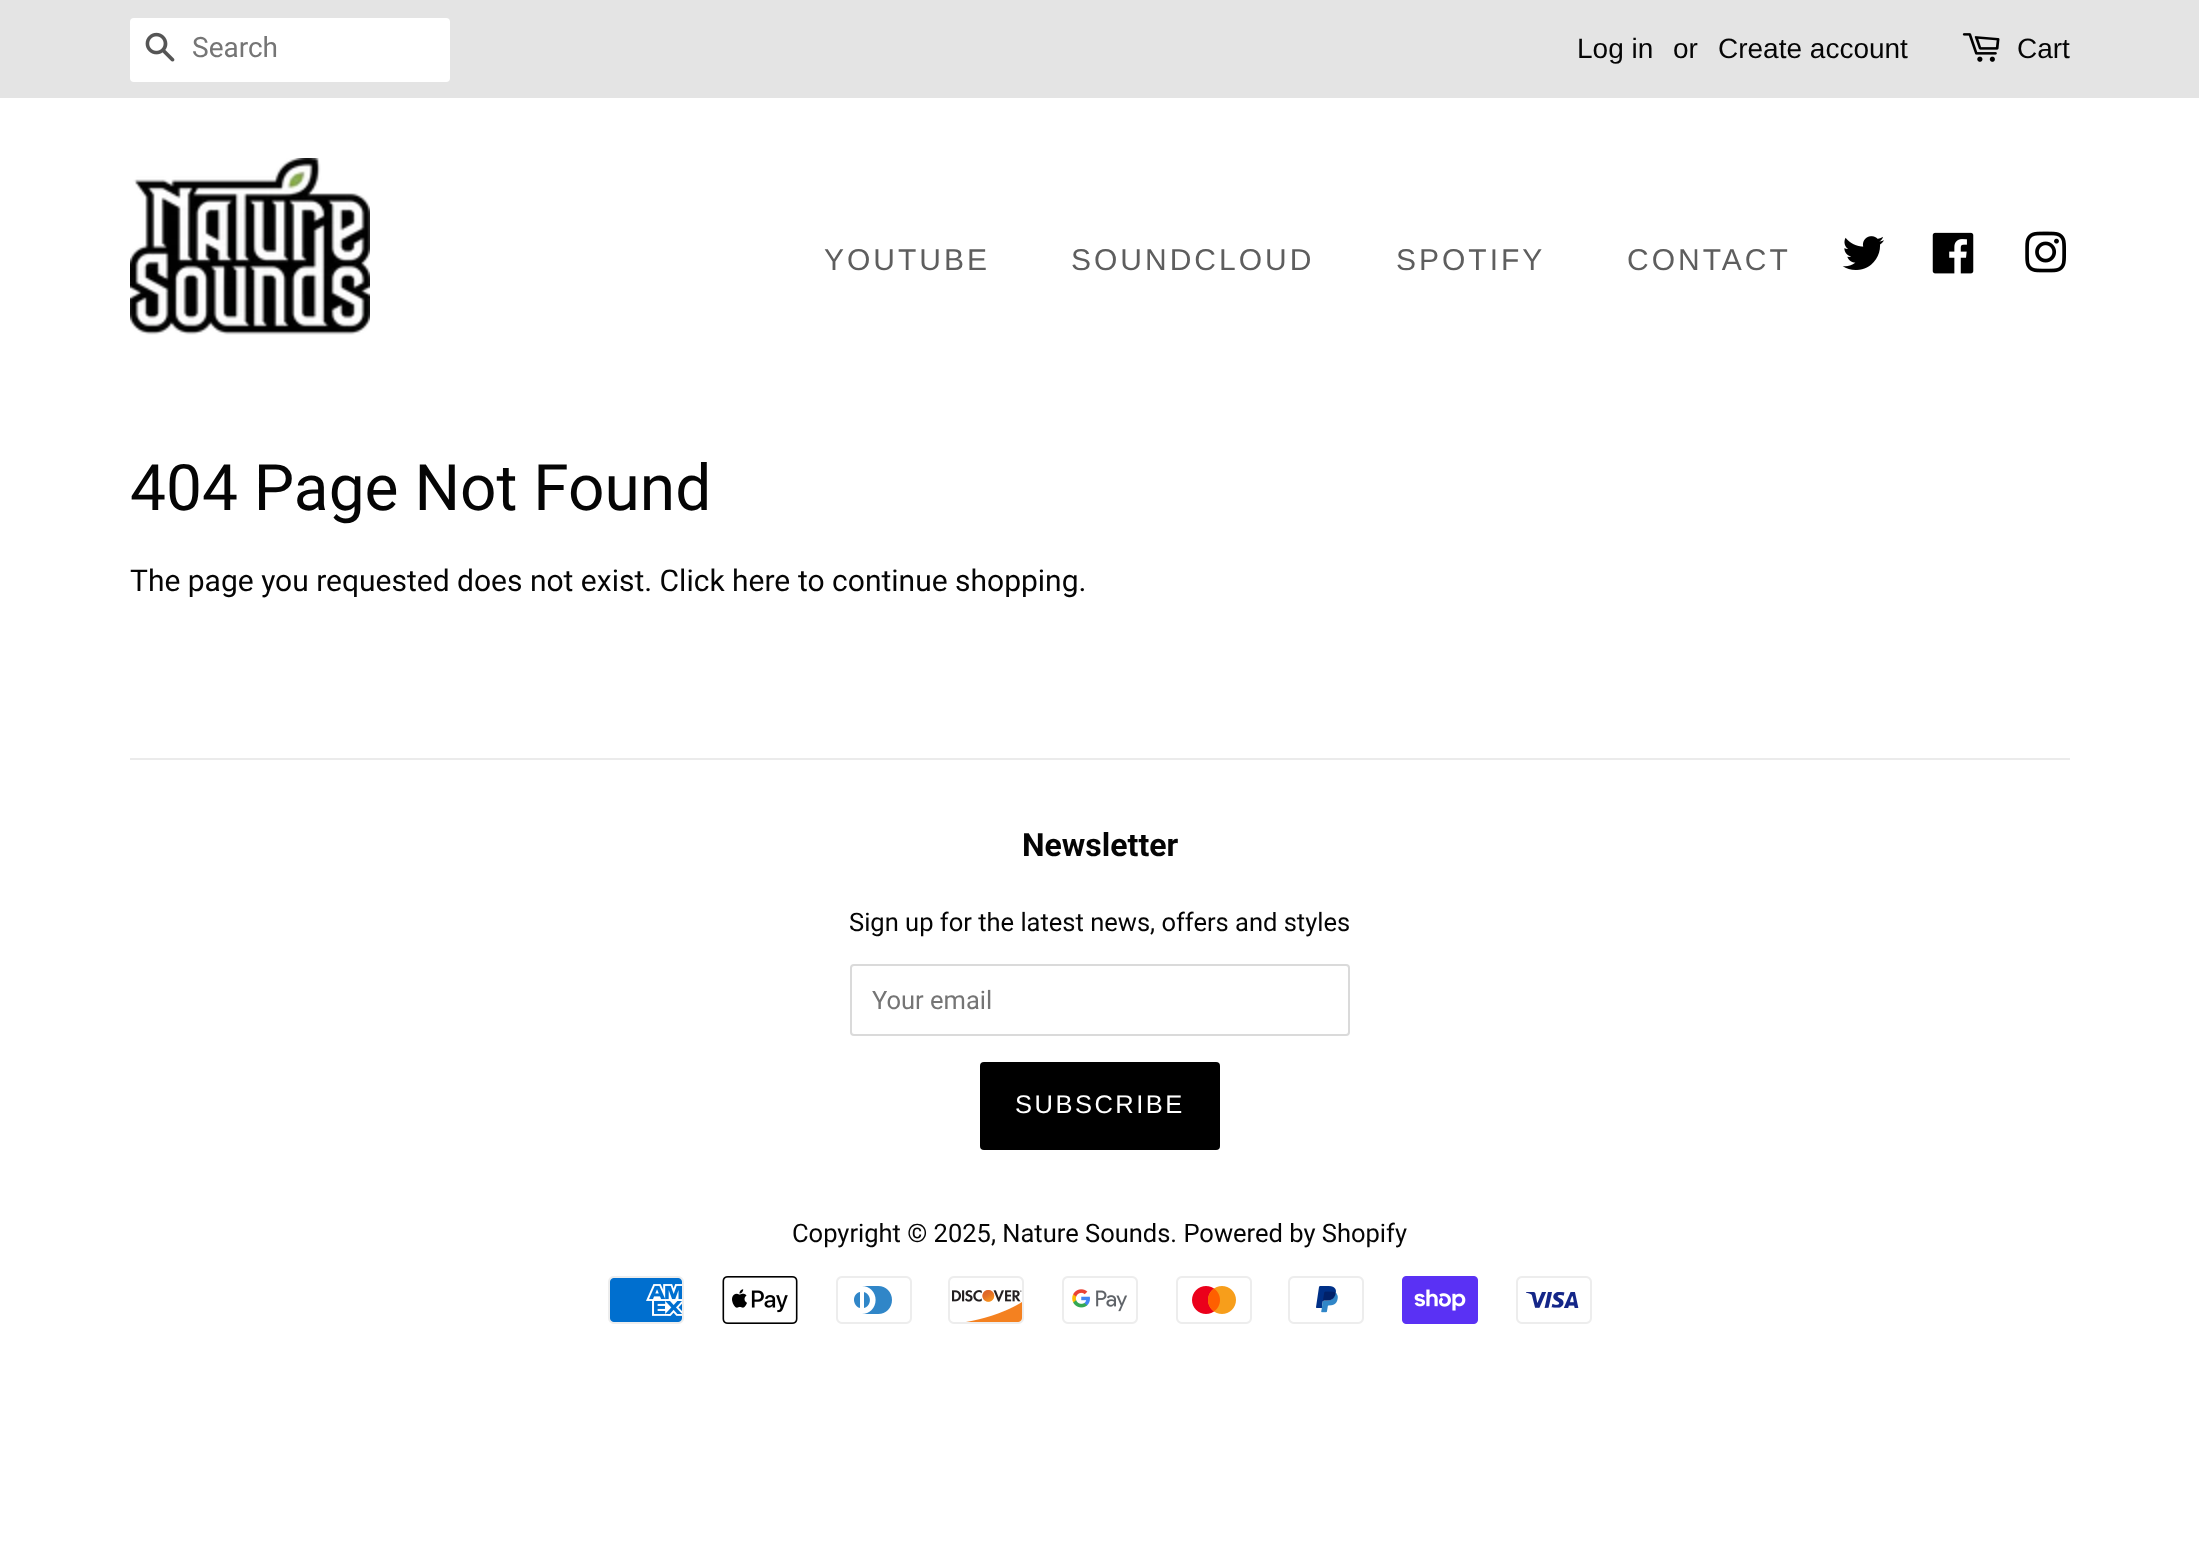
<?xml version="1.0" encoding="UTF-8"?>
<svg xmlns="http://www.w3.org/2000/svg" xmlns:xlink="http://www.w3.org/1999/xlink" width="2199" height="1561">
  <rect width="100%" height="100%" fill="#ffffff" />
  <rect width="2199" height="98" fill="#e4e4e4" />
  <rect x="130" y="18" width="320" height="64" rx="4" fill="#ffffff" />
  <image x="145" y="32" width="30" height="30" xlink:href="image1.png" />
  <image x="1962" y="33" width="38" height="29" xlink:href="image2.png" />
  <image x="130" y="158" width="240" height="177" xlink:href="image3.png" />
  <image x="1842" y="236" width="42" height="34" xlink:href="image4.png" />
  <image x="1932" y="232" width="42" height="42" xlink:href="image5.png" />
  <image x="2025" y="231" width="41" height="42" xlink:href="image6.png" />
  <rect x="130" y="758" width="1940" height="2" fill="#ebebeb" />
  <rect x="851" y="965" width="498" height="70" rx="3" fill="none" stroke="#dadada" stroke-width="2" />
  <rect x="980" y="1062" width="240" height="88" rx="4" fill="#000000" />
  <image x="608" y="1276" width="76" height="48" xlink:href="image7.png" />
  <image x="722" y="1276" width="76" height="48" xlink:href="image8.png" />
  <image x="836" y="1276" width="76" height="48" xlink:href="image9.png" />
  <image x="948" y="1276" width="76" height="48" xlink:href="image10.png" />
  <image x="1062" y="1276" width="76" height="48" xlink:href="image11.png" />
  <image x="1176" y="1276" width="76" height="48" xlink:href="image12.png" />
  <image x="1288" y="1276" width="76" height="48" xlink:href="image13.png" />
  <image x="1402" y="1276" width="76" height="48" xlink:href="image14.png" />
  <image x="1516" y="1276" width="76" height="48" xlink:href="image15.png" />
  <text x="192" y="57" style="font-family: Roboto; font-size: 28px; fill: #757575">Search</text>
  <text x="1577" y="58" style="font-family: Arimo; font-size: 28px; fill: #050505">Log in</text>
  <text x="1673" y="58" style="font-family: Arimo; font-size: 28px; fill: #050505">or</text>
  <text x="1718" y="58" style="font-family: Arimo; font-size: 28px; fill: #050505">Create account</text>
  <text x="2017" y="58" style="font-family: Arimo; font-size: 28px; fill: #050505">Cart</text>
  <text x="824" y="270" style="font-family: Arimo; font-size: 30px; letter-spacing: 3px; fill: #5e5e5e">YOUTUBE</text>
  <text x="1071" y="270" style="font-family: Arimo; font-size: 30px; letter-spacing: 3px; fill: #5e5e5e">SOUNDCLOUD</text>
  <text x="1396" y="270" style="font-family: Arimo; font-size: 30px; letter-spacing: 3px; fill: #5e5e5e">SPOTIFY</text>
  <text x="1627" y="270" style="font-family: Arimo; font-size: 30px; letter-spacing: 3px; fill: #5e5e5e">CONTACT</text>
  <text x="130" y="510" style="font-family: Roboto; font-size: 64px; fill: #050505">404 Page Not Found</text>
  <text x="130" y="591" style="font-family: Roboto; font-size: 30px; fill: #050505">The page you requested does not exist. Click</text>
  <text x="732" y="591" style="font-family: Roboto; font-size: 30px; fill: #050505">here</text>
  <text x="798" y="591" style="font-family: Roboto; font-size: 30px; fill: #050505">to continue shopping.</text>
  <text x="1022" y="856" style="font-family: Roboto; font-size: 32px; font-weight: bold; fill: #050505">Newsletter</text>
  <text x="849" y="931" style="font-family: Roboto; font-size: 25.5px; fill: #050505">Sign up for the latest news, offers and styles</text>
  <text x="872" y="1009" style="font-family: Roboto; font-size: 25.5px; fill: #757575">Your email</text>
  <text x="1015" y="1113" style="font-family: Arimo; font-size: 25.5px; letter-spacing: 2.5px; fill: #ffffff">SUBSCRIBE</text>
  <text x="792" y="1242" style="font-family: Roboto; font-size: 25.5px; fill: #050505">Copyright © 2025, Nature Sounds. Powered by Shopify</text>
</svg>
